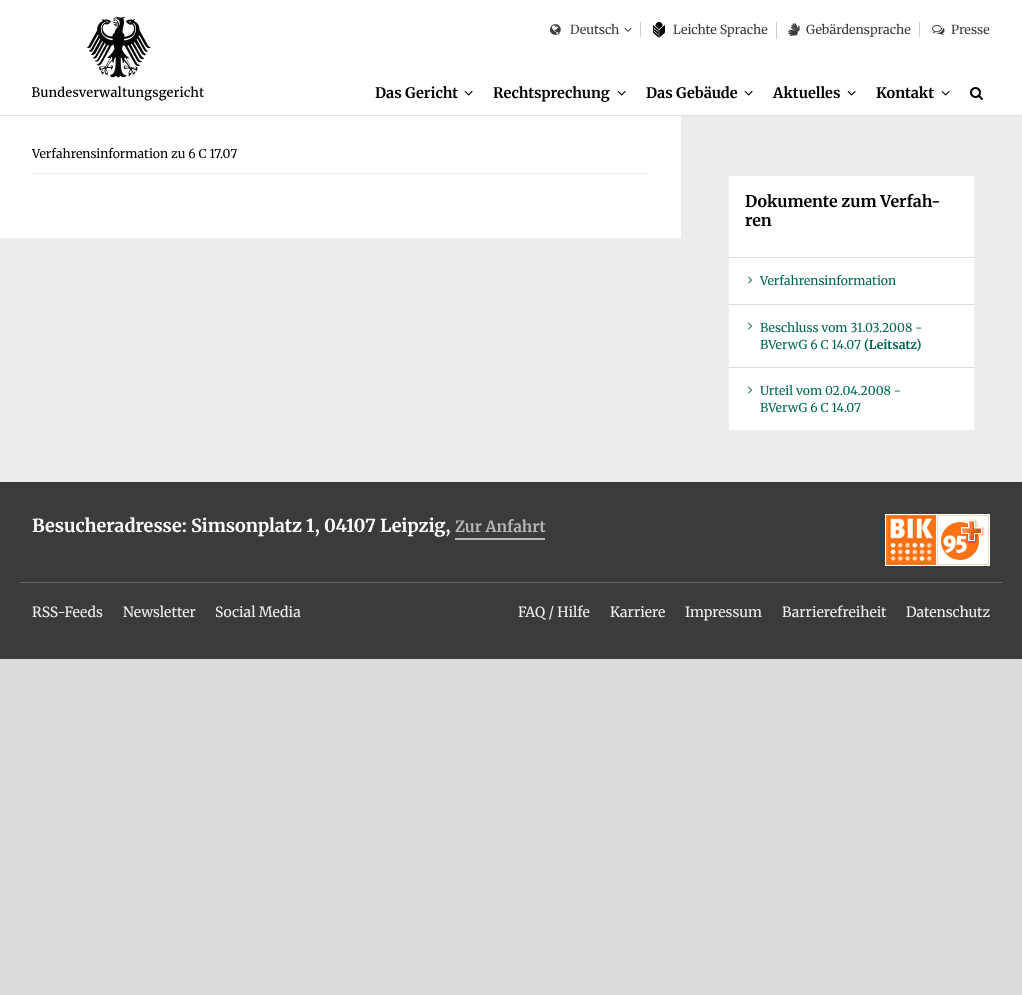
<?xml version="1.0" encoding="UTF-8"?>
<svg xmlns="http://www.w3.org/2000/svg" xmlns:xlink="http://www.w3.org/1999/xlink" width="1022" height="995">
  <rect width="100%" height="100%" fill="#dcdcdc" />
  <rect width="1022" height="115" fill="#ffffff" />
  <image x="32" y="16" width="172" height="85" xlink:href="image1.png" />
  <rect x="640" y="22" width="1" height="15" fill="#cccccc" />
  <image x="550" y="24" width="11" height="11" xlink:href="image2.png" />
  <image x="624" y="27" width="8" height="5" xlink:href="image3.png" />
  <rect x="776" y="22" width="1" height="17" fill="#cccccc" />
  <image x="653" y="22" width="12" height="16" xlink:href="image4.png" />
  <rect x="919" y="22" width="1" height="15" fill="#cccccc" />
  <image x="788" y="23" width="12" height="13" xlink:href="image5.png" />
  <image x="932" y="25" width="13" height="10" xlink:href="image6.png" />
  <rect y="115" width="1022" height="1" fill="#d6e7e4" />
  <image x="464" y="91" width="9" height="5" xlink:href="image7.png" />
  <image x="617" y="91" width="9" height="5" xlink:href="image7.png" />
  <image x="744" y="91" width="9" height="5" xlink:href="image7.png" />
  <image x="847" y="91" width="9" height="5" xlink:href="image7.png" />
  <image x="941" y="91" width="9" height="5" xlink:href="image7.png" />
  <image x="970" y="87" width="13" height="13" xlink:href="image8.png" />
  <rect y="116" width="1022" height="366" fill="#ededed" />
  <rect y="116" width="681" height="122" fill="#ffffff" />
  <rect x="32" y="173" width="617" height="1" fill="#ededed" />
  <rect x="729" y="176" width="245" height="254" fill="#ffffff" />
  <rect x="729" y="257" width="245" height="1" fill="#dcdcdc" />
  <image x="748" y="276" width="4" height="8" xlink:href="image9.png" />
  <rect x="729" y="304" width="245" height="1" fill="#dcdcdc" />
  <image x="748" y="322" width="4" height="8" xlink:href="image9.png" />
  <rect x="729" y="367" width="245" height="1" fill="#dcdcdc" />
  <image x="748" y="386" width="4" height="8" xlink:href="image9.png" />
  <rect y="482" width="1022" height="177" fill="#3b3b3b" />
  <rect x="455" y="538" width="90" height="2" fill="#b4b4b4" />
  <image x="885" y="514" width="105" height="52" xlink:href="image10.png" />
  <rect x="20" y="582" width="982" height="1" fill="#666666" />
  <text x="570" y="34" style="font-family: Merriweather; font-size: 12.5px; fill: #3b3b3b">Deutsch</text>
  <text x="673" y="34" style="font-family: Merriweather; font-size: 12.5px; fill: #3b3b3b">Leichte Sprache</text>
  <text x="806" y="34" style="font-family: Merriweather; font-size: 12.5px; fill: #3b3b3b">Gebärdensprache</text>
  <text x="951" y="34" style="font-family: Merriweather; font-size: 12.5px; fill: #3b3b3b">Presse</text>
  <text x="375" y="98" style="font-family: Merriweather; font-size: 14.5px; font-weight: bold; fill: #000000">Das Gericht</text>
  <text x="493" y="98" style="font-family: Merriweather; font-size: 14.5px; font-weight: bold; fill: #000000">Rechtsprechung</text>
  <text x="646" y="98" style="font-family: Merriweather; font-size: 14.5px; font-weight: bold; fill: #000000">Das Gebäude</text>
  <text x="773" y="98" style="font-family: Merriweather; font-size: 14.5px; font-weight: bold; fill: #000000">Aktuelles</text>
  <text x="876" y="98" style="font-family: Merriweather; font-size: 14.5px; font-weight: bold; fill: #000000">Kontakt</text>
  <text x="32" y="158" style="font-family: Merriweather; font-size: 12.25px; fill: #000000">Verfahrensinformation zu 6 C 17.07</text>
  <text x="745" y="207" style="font-family: Merriweather; font-size: 16px; font-weight: bold; fill: #000000">Dokumente zum Verfah-</text>
  <text x="745" y="226" style="font-family: Merriweather; font-size: 16px; font-weight: bold; fill: #000000">ren</text>
  <text x="760" y="285" style="font-family: Merriweather; font-size: 12.25px; fill: #006954">Verfahrensinformation</text>
  <text x="760" y="332" style="font-family: Merriweather; font-size: 12.25px; fill: #006954">Beschluss vom 31.03.2008 -</text>
  <text x="760" y="349" style="font-family: Merriweather; font-size: 12.25px; fill: #006954">BVerwG 6 C 14.07</text>
  <text x="864" y="349" style="font-family: Merriweather; font-size: 12.25px; font-weight: bold; fill: #006954">(Leitsatz)</text>
  <text x="760" y="395" style="font-family: Merriweather; font-size: 12.25px; fill: #006954">Urteil vom 02.04.2008 -</text>
  <text x="760" y="412" style="font-family: Merriweather; font-size: 12.25px; fill: #006954">BVerwG 6 C 14.07</text>
  <text x="32" y="532" style="font-family: Merriweather; font-size: 18px; font-weight: bold; fill: #ffffff">Besucheradresse: Simsonplatz 1, 04107 Leipzig,</text>
  <text x="455" y="532" style="font-family: Merriweather; font-size: 15.5px; font-weight: bold; fill: #b4b4b4">Zur Anfahrt</text>
  <text x="32" y="617" style="font-family: Merriweather; font-size: 14px; fill: #ededed">RSS-Feeds</text>
  <text x="123" y="617" style="font-family: Merriweather; font-size: 14px; fill: #ededed">Newsletter</text>
  <text x="215" y="617" style="font-family: Merriweather; font-size: 14px; fill: #ededed">Social Media</text>
  <text x="518" y="617" style="font-family: Merriweather; font-size: 14px; fill: #ededed">FAQ / Hilfe</text>
  <text x="610" y="617" style="font-family: Merriweather; font-size: 14px; fill: #ededed">Karriere</text>
  <text x="685" y="617" style="font-family: Merriweather; font-size: 14px; fill: #ededed">Impressum</text>
  <text x="782" y="617" style="font-family: Merriweather; font-size: 14px; fill: #ededed">Barrierefreiheit</text>
  <text x="906" y="617" style="font-family: Merriweather; font-size: 14px; fill: #ededed">Datenschutz</text>
</svg>
